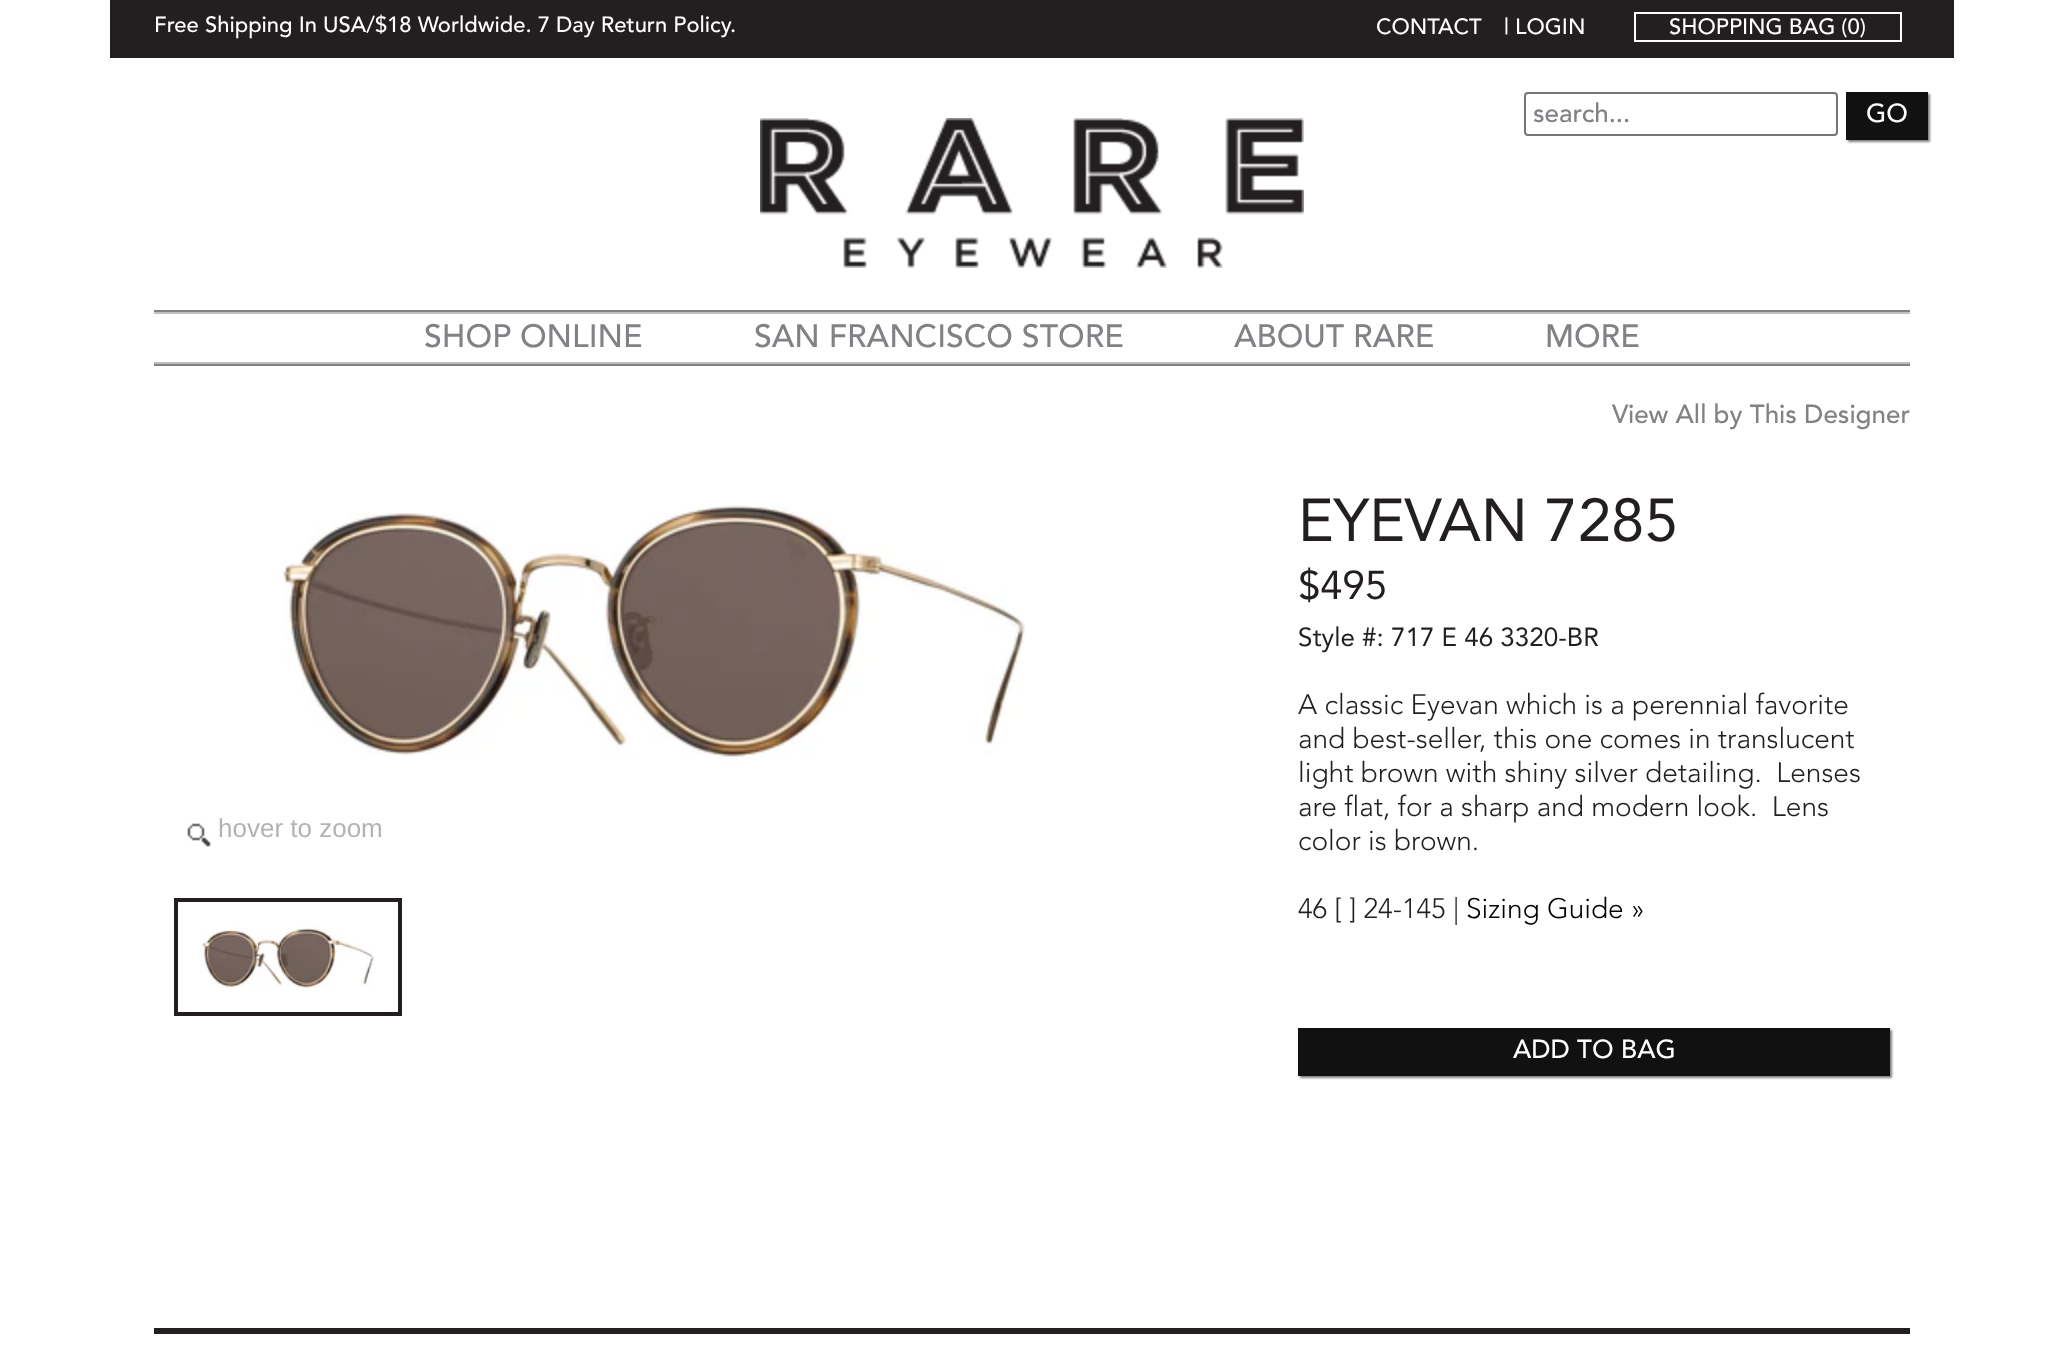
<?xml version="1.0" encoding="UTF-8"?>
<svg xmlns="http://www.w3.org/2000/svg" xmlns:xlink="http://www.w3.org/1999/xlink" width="2064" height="1372">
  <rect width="100%" height="100%" fill="#ffffff" />
  <rect x="110" width="1844" height="58" fill="#231f20" />
  <rect x="1635" y="13" width="266" height="28" fill="none" stroke="#ffffff" stroke-width="2" />
  <rect x="1525" y="93" width="312" height="42" rx="3" fill="none" stroke="#767676" stroke-width="2" />
  <rect x="1848" y="94" width="82" height="48" fill="#000000" fill-opacity="0.5" filter="blur(1px)" />
  <rect x="1846" y="92" width="82" height="48" fill="#111111" />
  <image x="760" y="118" width="544" height="150" xlink:href="image1.png" />
  <rect x="154" y="310" width="1756" height="2" fill="#818285" />
  <rect x="154" y="364" width="1756" height="2" fill="#818285" />
  <rect x="154" y="312" width="1756" height="2" fill="#c0c0c2" />
  <rect x="154" y="362" width="1756" height="2" fill="#c0c0c2" />
  <image x="280" y="505" width="745" height="256" xlink:href="image2.png" />
  <image x="187" y="823" width="24" height="24" xlink:href="image3.png" />
  <rect x="176" y="900" width="224" height="114" fill="none" stroke="#231f20" stroke-width="4" />
  <image x="200" y="926" width="174" height="62" xlink:href="image4.png" />
  <rect x="1300" y="1030" width="592" height="48" fill="#000000" fill-opacity="0.5" filter="blur(1px)" />
  <rect x="1298" y="1028" width="592" height="48" fill="#111111" />
  <rect x="154" y="1328" width="1756" height="6" fill="#231f20" />
  <text x="154" y="32" style="font-family: 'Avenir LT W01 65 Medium'; font-size: 22px; font-weight: 500; fill: #ffffff">Free Shipping In USA/$18 Worldwide. 7 Day Return Policy.</text>
  <text x="1376" y="34" style="font-family: 'Avenir LT W01 65 Medium'; font-size: 22px; font-weight: 500; fill: #ffffff">CONTACT</text>
  <text x="1504" y="34" style="font-family: 'Avenir LT W01 65 Medium'; font-size: 22px; font-weight: 500; fill: #ffffff">| LOGIN</text>
  <text x="1669" y="34" style="font-family: 'Avenir LT W01 65 Medium'; font-size: 22px; font-weight: 500; fill: #ffffff">SHOPPING BAG (0)</text>
  <text x="1533" y="122" style="font-family: 'Avenir LT W01 65 Medium'; font-size: 26px; font-weight: 500; fill: #808285">search...</text>
  <text x="1866" y="122" style="font-family: 'Avenir LT W01 65 Medium'; font-size: 26px; font-weight: 500; fill: #ffffff">GO</text>
  <text x="424" y="347" style="font-family: 'Avenir LT W01 65 Medium'; font-size: 32px; font-weight: 500; fill: #808285">SHOP ONLINE</text>
  <text x="754" y="347" style="font-family: 'Avenir LT W01 65 Medium'; font-size: 32px; font-weight: 500; fill: #808285">SAN FRANCISCO STORE</text>
  <text x="1234" y="347" style="font-family: 'Avenir LT W01 65 Medium'; font-size: 32px; font-weight: 500; fill: #808285">ABOUT RARE</text>
  <text x="1545" y="347" style="font-family: 'Avenir LT W01 65 Medium'; font-size: 32px; font-weight: 500; fill: #808285">MORE</text>
  <text x="218" y="837" style="font-family: Liberation Sans; font-size: 26px; fill: #b3b3b3">hover to zoom</text>
  <text x="1612" y="423" style="font-family: 'Avenir LT W01 65 Medium'; font-size: 26px; font-weight: 500; fill: #808285">View All by This Designer</text>
  <text x="1298" y="541" style="font-family: 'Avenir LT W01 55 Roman'; font-size: 60px; fill: #231f20">EYEVAN 7285</text>
  <text x="1298" y="599" style="font-family: 'Avenir LT W01 55 Roman'; font-size: 40px; fill: #231f20">$495</text>
  <text x="1298" y="646" style="font-family: 'Avenir LT W01 55 Roman'; font-size: 26px; fill: #231f20">Style #: 717 E 46 3320-BR</text>
  <text x="1298" y="714" style="font-family: 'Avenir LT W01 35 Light'; font-size: 28px; font-weight: 300; fill: #231f20">A classic Eyevan which is a perennial favorite</text>
  <text x="1298" y="748" style="font-family: 'Avenir LT W01 35 Light'; font-size: 28px; font-weight: 300; fill: #231f20">and best-seller, this one comes in translucent</text>
  <text x="1298" y="782" style="font-family: 'Avenir LT W01 35 Light'; font-size: 28px; font-weight: 300; fill: #231f20" xml:space="preserve">light brown with shiny silver detailing.  Lenses</text>
  <text x="1298" y="816" style="font-family: 'Avenir LT W01 35 Light'; font-size: 28px; font-weight: 300; fill: #231f20" xml:space="preserve">are flat, for a sharp and modern look.  Lens</text>
  <text x="1298" y="850" style="font-family: 'Avenir LT W01 35 Light'; font-size: 28px; font-weight: 300; fill: #231f20">color is brown.</text>
  <text x="1298" y="918" style="font-family: 'Avenir LT W01 35 Light'; font-size: 28px; font-weight: 300; fill: #231f20">46 [ ] 24-145 |</text>
  <text x="1466" y="918" style="font-family: 'Avenir LT W01 35 Light'; font-size: 28px; font-weight: 300; fill: #000000">Sizing Guide »</text>
  <text x="1513" y="1058" style="font-family: 'Avenir LT W01 65 Medium'; font-size: 26px; font-weight: 500; fill: #ffffff">ADD TO BAG</text>
</svg>
